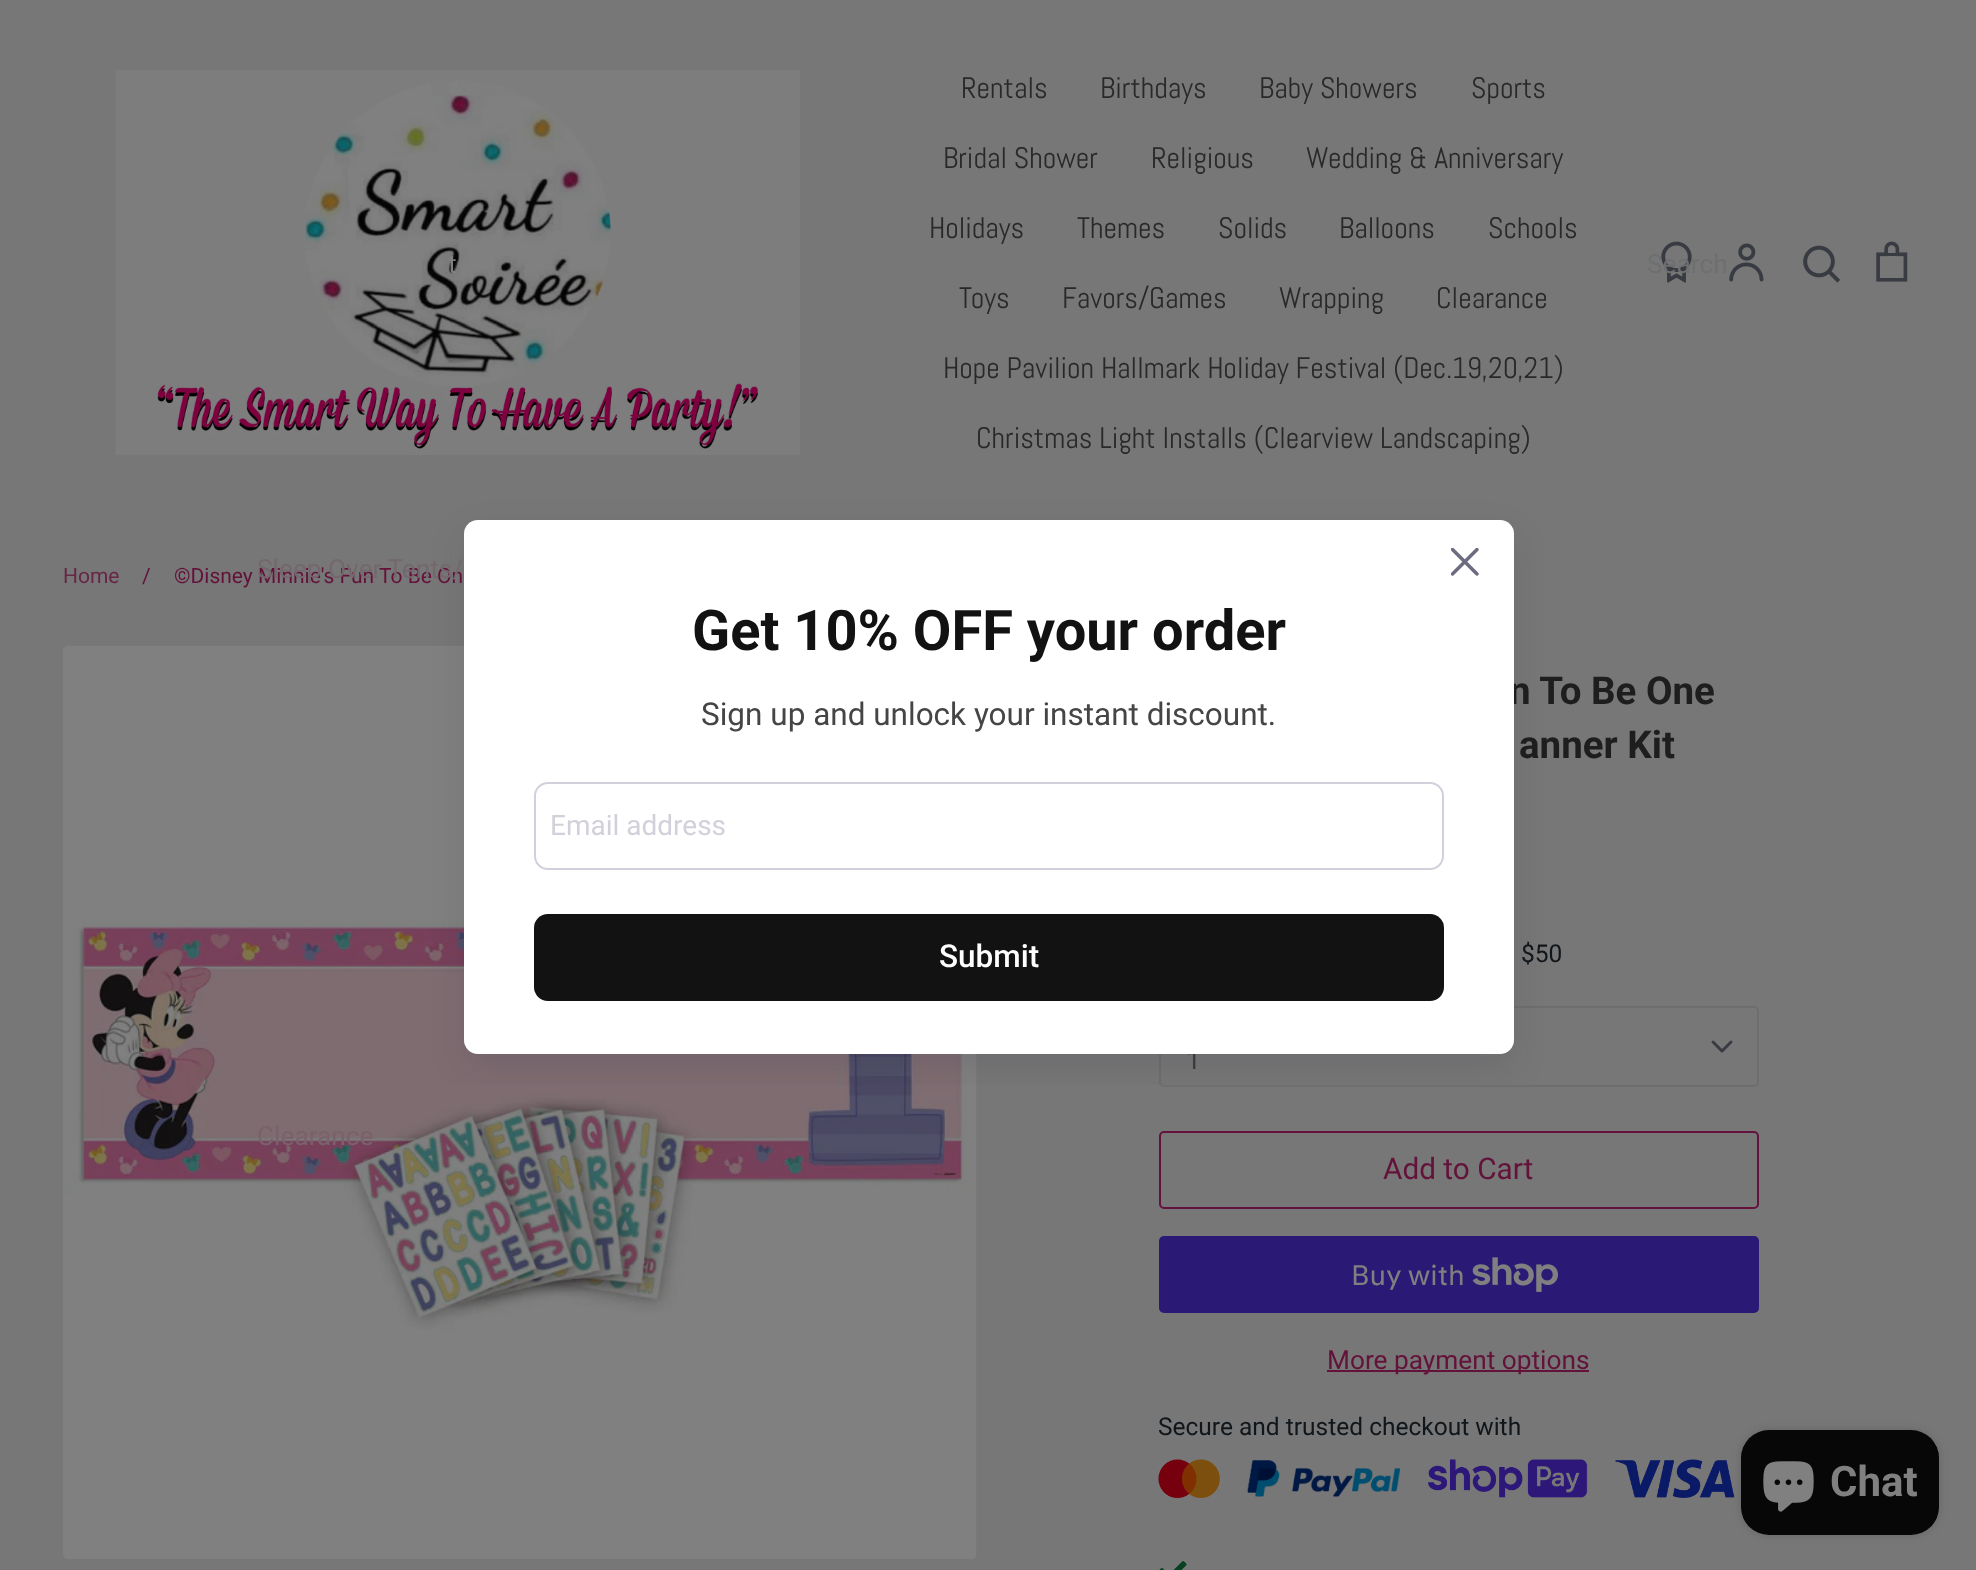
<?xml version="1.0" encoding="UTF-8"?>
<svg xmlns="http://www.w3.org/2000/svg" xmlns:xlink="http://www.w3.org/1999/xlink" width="1976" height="1570">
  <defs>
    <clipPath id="clip1"><rect x="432" y="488" width="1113" height="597" /></clipPath>
  </defs>
  <rect width="100%" height="100%" fill="#777777" />
  <image x="115" y="70" width="685" height="385" xlink:href="image1.png" />
  <image x="1661" y="241" width="31" height="42" xlink:href="image2.png" />
  <image x="1729" y="243" width="35" height="39" xlink:href="image3.png" />
  <image x="1876" y="241" width="32" height="41" xlink:href="image4.png" />
  <image x="1803" y="245" width="38" height="38" xlink:href="image5.png" />
  <image x="63" y="646" width="914" height="913" xlink:href="image7.png" />
  <rect x="1160" y="1007" width="598" height="79" rx="4" fill="none" stroke="#6e6e6f" stroke-width="2" />
  <g clip-path="url(#clip1)">
    <rect x="464" y="534" width="1050" height="534" rx="14" fill="#121127" fill-opacity="0.1" filter="blur(17.5px)" />
  </g>
  <path d="M 1713 1042 l 9 9 l 9 -9" fill="none" stroke="#393b43" stroke-width="2.9" stroke-linecap="round" stroke-linejoin="round" />
  <rect x="1160" y="1132" width="598" height="76" rx="4" fill="none" stroke="#63123e" stroke-width="2" />
  <rect x="1159" y="1236" width="600" height="77" rx="5" fill="#2a1a76" />
  <image x="1472" y="1257" width="86" height="35" xlink:href="image8.png" />
  <rect x="1327" y="1370" width="262" height="2" fill="#63123a" />
  <image x="1158" y="1459" width="62" height="39" xlink:href="image9.png" />
  <image x="1247" y="1460" width="153" height="37" xlink:href="image10.png" />
  <image x="1428" y="1459" width="160" height="39" xlink:href="image11.png" />
  <image x="1615" y="1459" width="120" height="39" xlink:href="image12.png" />
  <image x="1159" y="1561" width="28" height="9" xlink:href="image13.png" />
  <rect x="1741" y="1430" width="198" height="105" rx="28" fill="#000000" fill-opacity="0.15" filter="blur(4.5px)" />
  <rect x="1741" y="1430" width="198" height="105" rx="28" fill="#070707" />
  <image x="1763" y="1461" width="51" height="51" xlink:href="image14.png" />
  <text x="961" y="98" style="font-family: Abel; font-size: 29.75px; fill: #292929">Rentals</text>
  <text x="1100" y="98" style="font-family: Abel; font-size: 29.75px; fill: #292929">Birthdays</text>
  <text x="1259" y="98" style="font-family: Abel; font-size: 29.75px; fill: #292929">Baby Showers</text>
  <text x="1471" y="98" style="font-family: Abel; font-size: 29.75px; fill: #292929">Sports</text>
  <text x="943" y="168" style="font-family: Abel; font-size: 29.75px; fill: #292929">Bridal Shower</text>
  <text x="1151" y="168" style="font-family: Abel; font-size: 29.75px; fill: #292929">Religious</text>
  <text x="1306" y="168" style="font-family: Abel; font-size: 29.75px; fill: #292929">Wedding &amp; Anniversary</text>
  <text x="929" y="238" style="font-family: Abel; font-size: 29.75px; fill: #292929">Holidays</text>
  <text x="1077" y="238" style="font-family: Abel; font-size: 29.75px; fill: #292929">Themes</text>
  <text x="1218" y="238" style="font-family: Abel; font-size: 29.75px; fill: #292929">Solids</text>
  <text x="1339" y="238" style="font-family: Abel; font-size: 29.75px; fill: #292929">Balloons</text>
  <text x="1488" y="238" style="font-family: Abel; font-size: 29.75px; fill: #292929">Schools</text>
  <text x="959" y="308" style="font-family: Abel; font-size: 29.75px; fill: #292929">Toys</text>
  <text x="1062" y="308" style="font-family: Abel; font-size: 29.75px; fill: #292929">Favors/Games</text>
  <text x="1279" y="308" style="font-family: Abel; font-size: 29.75px; fill: #292929">Wrapping</text>
  <text x="1436" y="308" style="font-family: Abel; font-size: 29.75px; fill: #292929">Clearance</text>
  <text x="943" y="378" style="font-family: Abel; font-size: 29.75px; fill: #292929">Hope Pavilion Hallmark Holiday Festival (Dec.19,20,21)</text>
  <text x="976" y="448" style="font-family: Abel; font-size: 29.75px; fill: #292929">Christmas Light Installs (Clearview Landscaping)</text>
  <text x="448" y="273" style="font-family: Roboto; font-size: 26.25px; fill: #808080">t</text>
  <text x="1647" y="273" style="font-family: Roboto; font-size: 26.25px; fill: #6e6f70">Search</text>
  <text x="257" y="1145" style="font-family: Roboto; font-size: 26.25px; fill: #7b616b">Clearance</text>
  <text x="63" y="583" style="font-family: Roboto; font-size: 21px; fill: #672646">Home</text>
  <text x="142" y="583" style="font-family: Roboto; font-size: 21px; fill: #63123a">/</text>
  <text x="174" y="583" style="font-family: Roboto; font-size: 21px; fill: #63123a">©Disney Minnie's Fun To Be On</text>
  <text x="257" y="578" style="font-family: Roboto; font-size: 26.25px; fill: #74686e">Sleep Over Tents/</text>
  <text x="1509" y="704" style="font-family: Roboto; font-size: 38.5px; font-weight: bold; fill: #1e1e1e">n To Be One</text>
  <text x="1519" y="758" style="font-family: Roboto; font-size: 38.5px; font-weight: bold; fill: #1e1e1e">anner Kit</text>
  <text x="1521" y="962" style="font-family: Roboto; font-size: 24.5px; fill: #11161b">$50</text>
  <text x="1186" y="1069" style="font-family: Roboto; font-size: 26.25px; fill: #393b43">1</text>
  <rect x="464" y="520" width="1050" height="534" rx="14" fill="#ffffff" />
  <image x="1451" y="548" width="28" height="28" xlink:href="image6.png" />
  <rect x="534" y="914" width="910" height="87" rx="14" fill="#121212" />
  <text x="939" y="967" style="font-family: Roboto; font-size: 31.5px; font-weight: 500; fill: #ffffff">Submit</text>
  <rect x="535" y="783" width="908" height="86" rx="13" fill="none" stroke="#d1d1db" stroke-width="2" />
  <text x="550" y="835" style="font-family: Roboto; font-size: 28px; fill: #d1d1db">Email address</text>
  <text x="701" y="725" style="font-family: Roboto; font-size: 31.5px; fill: #454545">Sign up and unlock your instant discount.</text>
  <text x="692" y="650" style="font-family: Roboto; font-size: 56px; font-weight: bold; fill: #121212">Get 10% OFF your order</text>
  <text x="1383" y="1179" style="font-family: Roboto; font-size: 29.75px; fill: #63123a">Add to Cart</text>
  <text x="1351" y="1285" style="font-family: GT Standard; font-size: 28px; fill: #808080">Buy with</text>
  <text x="1327" y="1369" style="font-family: Roboto; font-size: 26.25px; fill: #63123a">More payment options</text>
  <text x="1158" y="1435" style="font-family: Roboto; font-size: 24.5px; fill: #11161b">Secure and trusted checkout with</text>
  <text x="1830" y="1496" style="font-family: Roboto; font-size: 42px; font-weight: bold; fill: #808080">Chat</text>
</svg>
